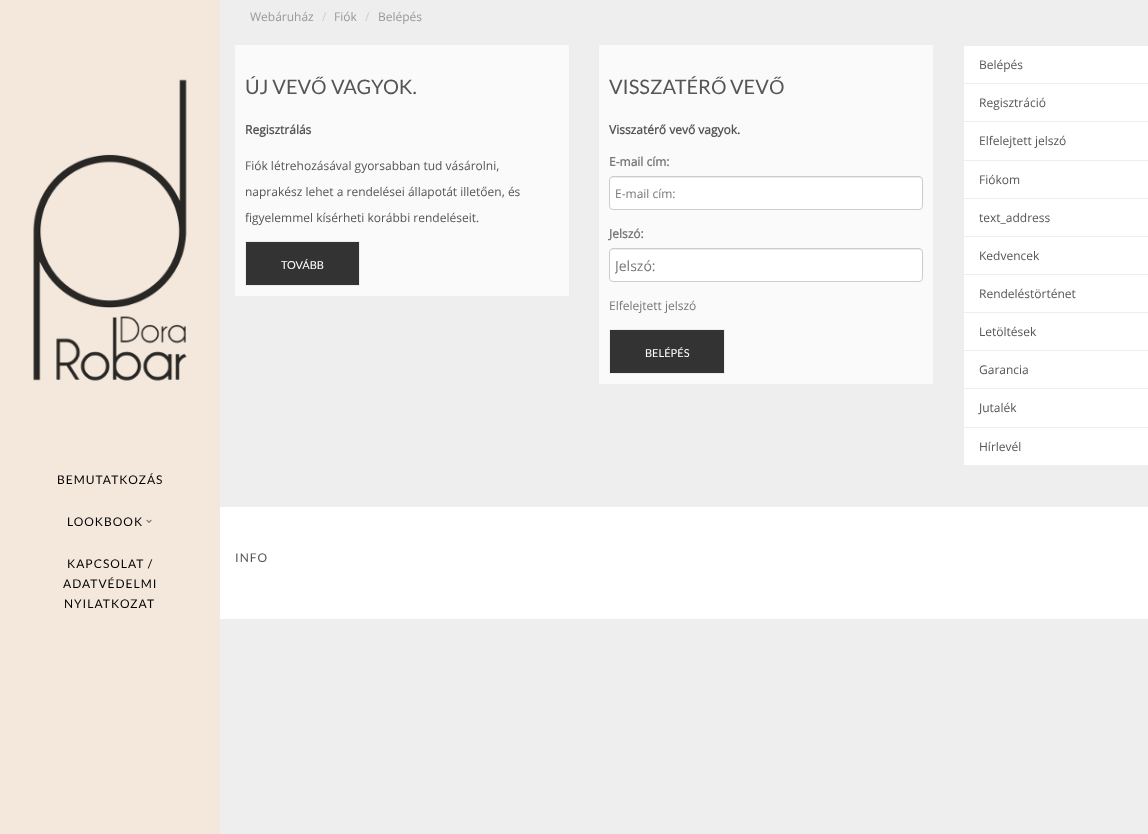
<?xml version="1.0" encoding="UTF-8"?>
<svg xmlns="http://www.w3.org/2000/svg" xmlns:xlink="http://www.w3.org/1999/xlink" width="1148" height="834">
  <defs>
    <clipPath id="clip1"><rect x="615" y="256" width="302" height="19" /></clipPath>
  </defs>
  <rect width="100%" height="100%" fill="#eeeeee" />
  <rect x="235" y="45" width="334" height="251" fill="#fafafa" />
  <rect x="245.5" y="241.5" width="114" height="44" fill="#333333" stroke="#eeeeee" />
  <rect x="599" y="45" width="334" height="339" fill="#fafafa" />
  <rect x="609" y="176" width="314" height="34" rx="4" fill="#ffffff" />
  <path d="M 613 178 h 306 c 2 0 3 1 3 3 l -1 -3 l -1 -1 h -307 c -2 0 -3 2 -3 4 c 0 -2 1 -3 3 -3 z" fill="#ececec" />
  <rect x="609.5" y="176.5" width="313" height="33" rx="3.5" fill="none" stroke="#cccccc" />
  <rect x="609" y="248" width="314" height="34" rx="4" fill="#ffffff" />
  <path d="M 613 250 h 306 c 2 0 3 1 3 3 l -1 -3 l -1 -1 h -307 c -2 0 -3 2 -3 4 c 0 -2 1 -3 3 -3 z" fill="#ececec" />
  <rect x="609.5" y="248.5" width="313" height="33" rx="3.5" fill="none" stroke="#cccccc" />
  <rect x="609.5" y="329.5" width="115" height="44" fill="#333333" stroke="#eeeeee" />
  <rect x="964" y="46" width="184" height="37" fill="#ffffff" />
  <rect x="964" y="84" width="184" height="37" fill="#ffffff" />
  <rect x="964" y="122" width="184" height="38" fill="#ffffff" />
  <rect x="964" y="161" width="184" height="37" fill="#ffffff" />
  <rect x="964" y="199" width="184" height="37" fill="#ffffff" />
  <rect x="964" y="237" width="184" height="37" fill="#ffffff" />
  <rect x="964" y="275" width="184" height="37" fill="#ffffff" />
  <rect x="964" y="313" width="184" height="37" fill="#ffffff" />
  <rect x="964" y="351" width="184" height="37" fill="#ffffff" />
  <rect x="964" y="389" width="184" height="38" fill="#ffffff" />
  <rect x="964" y="428" width="184" height="37" fill="#ffffff" />
  <rect width="220" height="834" fill="#f4e8dd" />
  <image x="33" y="79" width="154" height="302" xlink:href="image1.png" />
  <image x="146" y="519" width="6" height="4" xlink:href="image2.png" />
  <rect x="220" y="507" width="928" height="112" fill="#ffffff" />
  <text x="250" y="21" style="font-family: Open Sans; font-size: 12px; fill: #999999">Webáruház</text>
  <text x="322" y="21" style="font-family: Open Sans; font-size: 12px; fill: #cccccc">/</text>
  <text x="334" y="21" style="font-family: Open Sans; font-size: 12px; fill: #999999">Fiók</text>
  <text x="365" y="21" style="font-family: Open Sans; font-size: 12px; fill: #cccccc">/</text>
  <text x="378" y="21" style="font-family: Open Sans; font-size: 12px; fill: #999999">Belépés</text>
  <text x="245" y="94" style="font-family: Lato; font-size: 20px; fill: #555555">ÚJ VEV</text>
  <text x="311" y="94" style="font-family: Liberation Sans; font-size: 20px; fill: #555555">Ő</text>
  <text x="331" y="94" style="font-family: Lato; font-size: 20px; fill: #555555">VAGYOK.</text>
  <text x="245" y="134" style="font-family: Open Sans; font-size: 12px; font-weight: bold; fill: #555555">Regisztrálás</text>
  <text x="245" y="170" style="font-family: Open Sans; font-size: 12px; fill: #555555">Fiók létrehozásával gyorsabban tud vásárolni,</text>
  <text x="245" y="196" style="font-family: Open Sans; font-size: 12px; fill: #555555">naprakész lehet a rendelései állapotát illetően, és</text>
  <text x="245" y="222" style="font-family: Open Sans; font-size: 12px; fill: #555555">figyelemmel kísérheti korábbi rendeléseit.</text>
  <text x="281" y="269" style="font-family: Lato; font-size: 11px; fill: #ffffff">TOVÁBB</text>
  <text x="609" y="94" style="font-family: Lato; font-size: 20px; fill: #555555">VISSZATÉR</text>
  <text x="711" y="94" style="font-family: Liberation Sans; font-size: 20px; fill: #555555">Ő</text>
  <text x="730" y="94" style="font-family: Lato; font-size: 20px; fill: #555555">VEV</text>
  <text x="769" y="94" style="font-family: Liberation Sans; font-size: 20px; fill: #555555">Ő</text>
  <text x="609" y="134" style="font-family: Open Sans; font-size: 12px; font-weight: bold; fill: #555555">Visszatérő vevő vagyok.</text>
  <text x="609" y="166" style="font-family: Open Sans; font-size: 12px; font-weight: bold; fill: #777777">E-mail cím:</text>
  <text x="615" y="198" style="font-family: Open Sans; font-size: 12px; fill: #777777">E-mail cím:</text>
  <text x="609" y="238" style="font-family: Open Sans; font-size: 12px; font-weight: bold; fill: #777777">Jelszó:</text>
  <g clip-path="url(#clip1)">
    <text x="615" y="271" style="font-family: Open Sans; font-size: 14px; fill: #777777">Jelszó:</text>
  </g>
  <text x="609" y="310" style="font-family: Open Sans; font-size: 12px; fill: #777777">Elfelejtett jelszó</text>
  <text x="645" y="357" style="font-family: Lato; font-size: 11px; fill: #ffffff">BELÉPÉS</text>
  <text x="979" y="69" style="font-family: Open Sans; font-size: 12px; fill: #555555">Belépés</text>
  <text x="979" y="107" style="font-family: Open Sans; font-size: 12px; fill: #555555">Regisztráció</text>
  <text x="979" y="145" style="font-family: Open Sans; font-size: 12px; fill: #555555">Elfelejtett jelszó</text>
  <text x="979" y="184" style="font-family: Open Sans; font-size: 12px; fill: #555555">Fiókom</text>
  <text x="979" y="222" style="font-family: Open Sans; font-size: 12px; fill: #555555">text_address</text>
  <text x="979" y="260" style="font-family: Open Sans; font-size: 12px; fill: #555555">Kedvencek</text>
  <text x="979" y="298" style="font-family: Open Sans; font-size: 12px; fill: #555555">Rendeléstörténet</text>
  <text x="979" y="336" style="font-family: Open Sans; font-size: 12px; fill: #555555">Letöltések</text>
  <text x="979" y="374" style="font-family: Open Sans; font-size: 12px; fill: #555555">Garancia</text>
  <text x="979" y="412" style="font-family: Open Sans; font-size: 12px; fill: #555555">Jutalék</text>
  <text x="979" y="451" style="font-family: Open Sans; font-size: 12px; fill: #555555">Hírlevél</text>
  <text x="57" y="484" style="font-family: Lato; font-size: 12px; letter-spacing: 1px; fill: #000000">BEMUTATKOZÁS</text>
  <text x="67" y="526" style="font-family: Lato; font-size: 12px; letter-spacing: 1px; fill: #000000">LOOKBOOK</text>
  <text x="67" y="568" style="font-family: Lato; font-size: 12px; letter-spacing: 1px; fill: #000000">KAPCSOLAT /</text>
  <text x="63" y="588" style="font-family: Lato; font-size: 12px; letter-spacing: 1px; fill: #000000">ADATVÉDELMI</text>
  <text x="64" y="608" style="font-family: Lato; font-size: 12px; letter-spacing: 1px; fill: #000000">NYILATKOZAT</text>
  <text x="235" y="562" style="font-family: Lato; font-size: 12px; letter-spacing: 1px; fill: #555555">INFO</text>
</svg>
